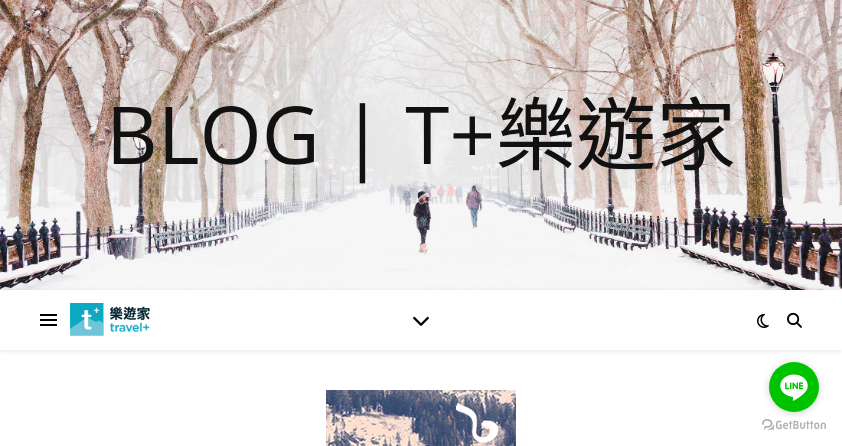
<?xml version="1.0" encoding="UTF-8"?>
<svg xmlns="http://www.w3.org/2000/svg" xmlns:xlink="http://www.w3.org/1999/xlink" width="842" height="446">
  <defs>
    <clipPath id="clip1"><path d="M 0 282 h 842 v 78 h -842 z m 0 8 h 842 v 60 h -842 z" clip-rule="evenodd" /></clipPath>
  </defs>
  <rect width="100%" height="100%" fill="#ffffff" />
  <image x="0" y="0" width="842" height="290" xlink:href="image1.png" />
  <g clip-path="url(#clip1)">
    <rect y="291" width="842" height="60" fill="#000000" fill-opacity="0.1" filter="blur(2.5px)" />
  </g>
  <rect x="40" y="314" width="17" height="2" fill="#000000" />
  <rect x="40" y="319" width="17" height="2" fill="#000000" />
  <rect x="40" y="324" width="17" height="2" fill="#000000" />
  <image x="70" y="303" width="80" height="33" xlink:href="image2.png" />
  <image x="413" y="316" width="16" height="10" xlink:href="image3.png" />
  <image x="757" y="314" width="12" height="14" xlink:href="image4.png" />
  <image x="787" y="312" width="15" height="16" xlink:href="image5.png" />
  <image x="326" y="390" width="190" height="56" xlink:href="image6.png" />
  <image x="762" y="419" width="64" height="11" xlink:href="image8.png" />
  <rect x="769" y="363" width="50" height="50" rx="25" fill="#888888" fill-opacity="0.4" filter="blur(3.5px)" />
  <circle cx="794" cy="387" r="25" fill="#00c300" />
  <image x="780" y="374" width="28" height="27" xlink:href="image7.png" />
  <text x="106" y="164" style="font-family: Open Sans; font-size: 80px; fill: #111111">BLOG | T+</text>
  <text x="496" y="164" style="font-family: Noto Sans CJK TC; font-size: 80px; fill: #111111">樂遊家</text>
</svg>
